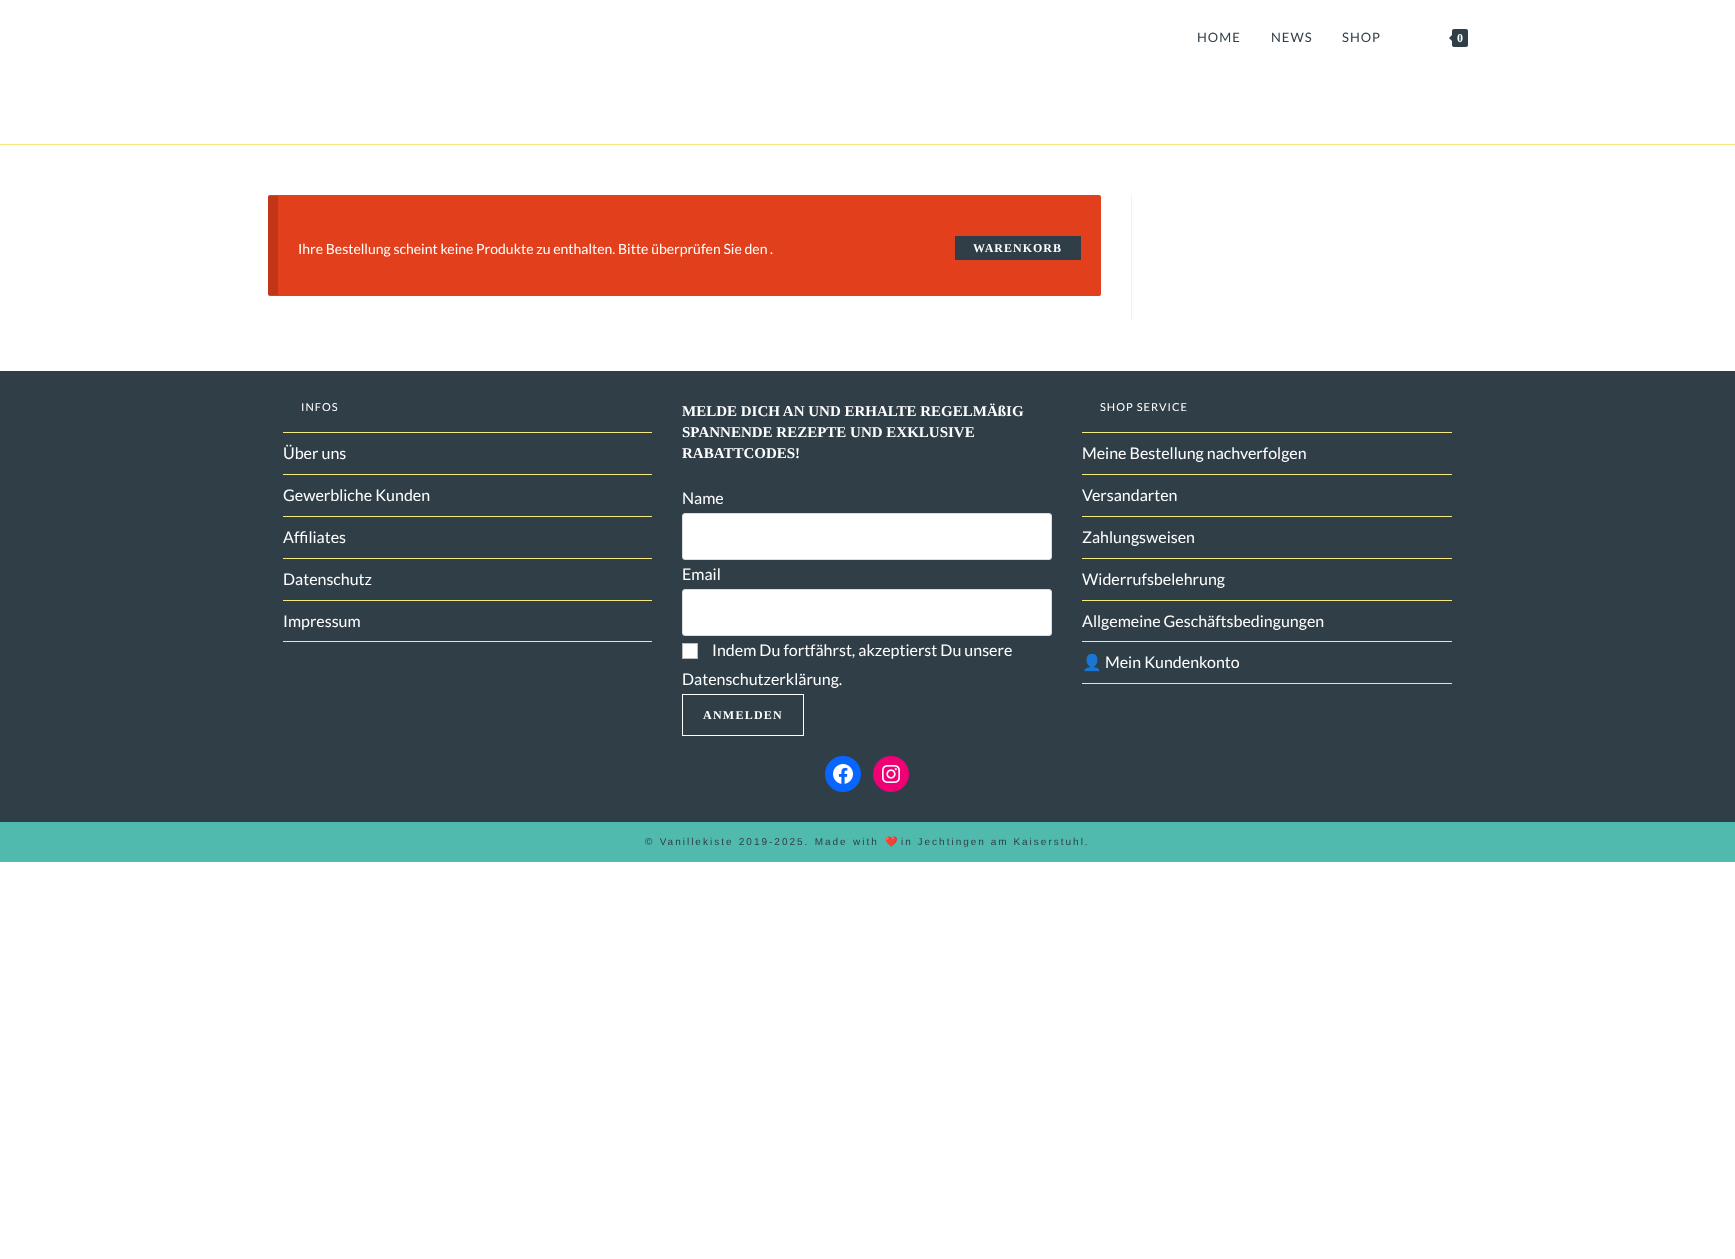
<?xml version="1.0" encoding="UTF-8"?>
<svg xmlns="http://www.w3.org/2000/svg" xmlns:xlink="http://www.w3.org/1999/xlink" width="1735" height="1259">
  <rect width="100%" height="100%" fill="#ffffff" />
  <rect y="144" width="1735" height="1" fill="#f5ea81" />
  <rect x="1452" y="29" width="16" height="18" rx="2" fill="#2f3e47" />
  <path d="M 1454 33 v 10 l -5 -5 z" fill="#2f3e47" />
  <rect x="1131" y="195" width="1" height="126" fill="#f1f1f1" />
  <rect x="268" y="195" width="833" height="101" rx="2" fill="#e2401c" />
  <rect x="268" y="196" width="10" height="99" fill="#000000" fill-opacity="0.15" />
  <rect x="955" y="236" width="126" height="24" fill="#2f3e47" />
  <rect y="371" width="1735" height="451" fill="#2f3e47" />
  <rect x="283" y="432" width="369" height="1" fill="#f5ea81" />
  <rect x="283" y="474" width="369" height="1" fill="#f5ea81" />
  <rect x="283" y="516" width="369" height="1" fill="#f5ea81" />
  <rect x="283" y="558" width="369" height="1" fill="#f5ea81" />
  <rect x="283" y="600" width="369" height="1" fill="#f5ea81" />
  <rect x="283" y="641" width="369" height="1" fill="#f5ea81" />
  <rect x="682.5" y="513.5" width="369" height="46" rx="2.5" fill="#ffffff" stroke="#dddddd" />
  <rect x="682.5" y="589.5" width="369" height="46" rx="2.5" fill="#ffffff" stroke="#dddddd" />
  <rect x="682.5" y="643.5" width="15" height="15" fill="#ffffff" stroke="#bbbbbb" />
  <rect x="682.5" y="694.5" width="121" height="41" fill="none" stroke="#ffffff" />
  <circle cx="843" cy="774" r="18" fill="#0866ff" />
  <image x="833" y="764" width="20" height="20" xlink:href="image1.png" />
  <circle cx="891" cy="774" r="18" fill="#f00075" />
  <image x="882" y="765" width="18" height="18" xlink:href="image2.png" />
  <rect x="1082" y="432" width="370" height="1" fill="#f5ea81" />
  <rect x="1082" y="474" width="370" height="1" fill="#f5ea81" />
  <rect x="1082" y="516" width="370" height="1" fill="#f5ea81" />
  <rect x="1082" y="558" width="370" height="1" fill="#f5ea81" />
  <rect x="1082" y="600" width="370" height="1" fill="#f5ea81" />
  <rect x="1082" y="641" width="370" height="1" fill="#f5ea81" />
  <rect x="1082" y="683" width="370" height="1" fill="#f5ea81" />
  <rect y="822" width="1735" height="40" fill="#51baaf" />
  <text x="1197" y="42" style="font-family: Lato; font-size: 13px; letter-spacing: 1px; fill: #2f3e47">HOME</text>
  <text x="1271" y="42" style="font-family: Lato; font-size: 13px; letter-spacing: 1px; fill: #2f3e47">NEWS</text>
  <text x="1342" y="42" style="font-family: Lato; font-size: 13px; letter-spacing: 1px; fill: #2f3e47">SHOP</text>
  <text x="1457" y="42" style="font-family: Liberation Serif; font-size: 12px; font-weight: bold; fill: #ffffff">0</text>
  <text x="298" y="254" style="font-family: Lato; font-size: 14px; fill: #ffffff">Ihre Bestellung scheint keine Produkte zu enthalten. Bitte überprüfen Sie den .</text>
  <text x="973" y="252" style="font-family: Liberation Serif; font-size: 12px; font-weight: bold; letter-spacing: 1px; fill: #ffffff">WARENKORB</text>
  <text x="301" y="411" style="font-family: Lato; font-size: 11px; letter-spacing: 1px; fill: #ffffff">INFOS</text>
  <text x="283" y="459" style="font-family: Lato; font-size: 16px; fill: #ffffff">Über uns</text>
  <text x="283" y="501" style="font-family: Lato; font-size: 16px; fill: #ffffff">Gewerbliche Kunden</text>
  <text x="283" y="543" style="font-family: Lato; font-size: 16px; fill: #ffffff">Affiliates</text>
  <text x="283" y="585" style="font-family: Lato; font-size: 16px; fill: #ffffff">Datenschutz</text>
  <text x="283" y="627" style="font-family: Lato; font-size: 16px; fill: #ffffff">Impressum</text>
  <text x="682" y="416" style="font-family: Liberation Serif; font-size: 15px; font-weight: bold; fill: #ffffff">MELDE DICH AN UND ERHALTE REGELMÄßIG</text>
  <text x="682" y="437" style="font-family: Liberation Serif; font-size: 15px; font-weight: bold; fill: #ffffff">SPANNENDE REZEPTE UND EXKLUSIVE</text>
  <text x="682" y="458" style="font-family: Liberation Serif; font-size: 15px; font-weight: bold; fill: #ffffff">RABATTCODES!</text>
  <text x="682" y="504" style="font-family: Lato; font-size: 16px; fill: #ffffff">Name</text>
  <text x="682" y="580" style="font-family: Lato; font-size: 16px; fill: #ffffff">Email</text>
  <text x="712" y="656" style="font-family: Lato; font-size: 16px; fill: #ffffff">Indem Du fortfährst, akzeptierst Du unsere</text>
  <text x="682" y="685" style="font-family: Lato; font-size: 16px; fill: #ffffff">Datenschutzerklärung.</text>
  <text x="703" y="719" style="font-family: Liberation Serif; font-size: 12px; font-weight: bold; letter-spacing: 1.25px; fill: #ffffff">ANMELDEN</text>
  <text x="1100" y="411" style="font-family: Lato; font-size: 11px; letter-spacing: 1px; fill: #ffffff">SHOP SERVICE</text>
  <text x="1082" y="459" style="font-family: Lato; font-size: 16px; fill: #ffffff">Meine Bestellung nachverfolgen</text>
  <text x="1082" y="501" style="font-family: Lato; font-size: 16px; fill: #ffffff">Versandarten</text>
  <text x="1082" y="543" style="font-family: Lato; font-size: 16px; fill: #ffffff">Zahlungsweisen</text>
  <text x="1082" y="585" style="font-family: Lato; font-size: 16px; fill: #ffffff">Widerrufsbelehrung</text>
  <text x="1082" y="627" style="font-family: Lato; font-size: 16px; fill: #ffffff">Allgemeine Geschäftsbedingungen</text>
  <text x="1082" y="668" style="font-family: Noto Color Emoji; font-size: 16px; fill: #ffffff">👤</text>
  <text x="1105" y="668" style="font-family: Lato; font-size: 16px; fill: #ffffff">Mein Kundenkonto</text>
  <text x="645" y="845" word-spacing="0.5" style="font-family: Liberation Sans; font-size: 10px; letter-spacing: 2px; fill: #2f3e47">© Vanillekiste 2019-2025. Made with</text>
  <text x="885" y="845" style="font-family: Noto Color Emoji; font-size: 10px; letter-spacing: 2px; fill: #2f3e47">❤️</text>
  <text x="901" y="845" style="font-family: Liberation Sans; font-size: 10px; letter-spacing: 2px; fill: #2f3e47">in Jechtingen am Kaiserstuhl.</text>
</svg>
